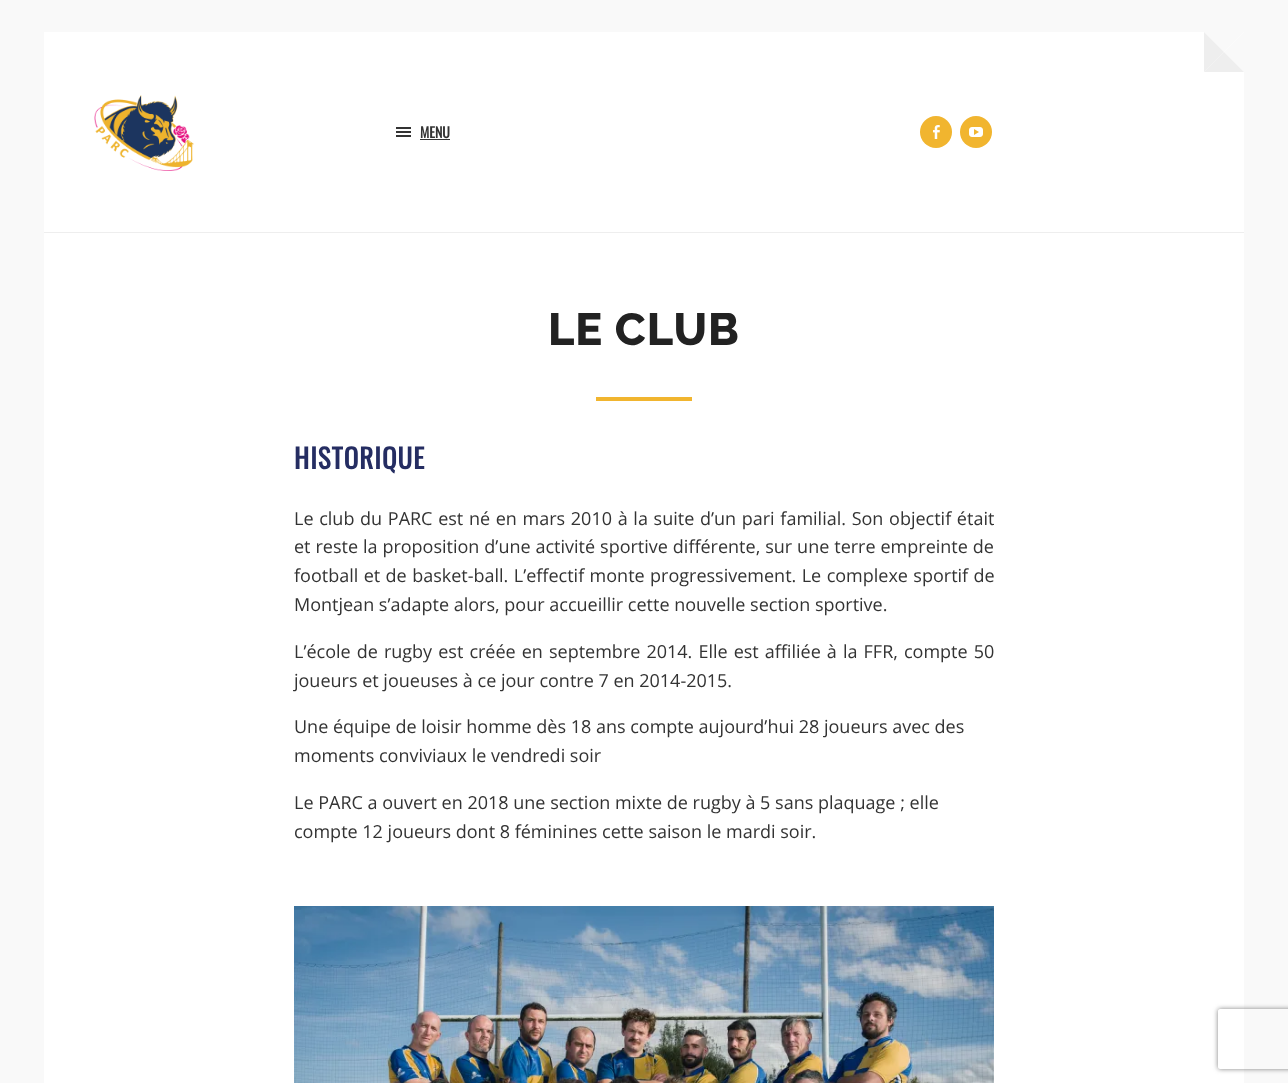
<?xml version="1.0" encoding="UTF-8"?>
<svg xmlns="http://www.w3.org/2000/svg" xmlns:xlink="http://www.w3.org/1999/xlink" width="1288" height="1083">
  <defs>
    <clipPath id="clip1"><path d="M 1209 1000 h 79 v 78 h -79 z m 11 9 h 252 c 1 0 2 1 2 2 v 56 c 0 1 -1 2 -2 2 h -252 c -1 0 -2 -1 -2 -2 v -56 c 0 -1 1 -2 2 -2 z" clip-rule="evenodd" /></clipPath>
  </defs>
  <rect width="100%" height="100%" fill="#f9f9f9" />
  <rect x="44" y="32" width="1200" height="1051" fill="#ffffff" />
  <path d="M 1204 32 h 40 l -20 20 z" fill="#f9f9f9" />
  <path d="M 1244 32 v 40 l -20 -20 z" fill="#f9f9f9" />
  <path d="M 1244 72 h -40 l 20 -20 z" fill="#eeeeee" />
  <path d="M 1204 72 v -40 l 20 20 z" fill="#eeeeee" />
  <rect x="44" y="232" width="1200" height="1" fill="#eeeeee" />
  <image x="94" y="95" width="100" height="76" xlink:href="image1.png" />
  <rect x="396" y="127" width="15" height="2" fill="#333333" />
  <rect x="396" y="131" width="15" height="2" fill="#333333" />
  <rect x="396" y="135" width="15" height="2" fill="#333333" />
  <rect x="420" y="139" width="30" height="1" fill="#333333" />
  <circle cx="936" cy="132" r="16" fill="#f1b52f" />
  <image x="933" y="125" width="7" height="14" xlink:href="image2.png" />
  <circle cx="976" cy="132" r="16" fill="#f1b52f" />
  <image x="969" y="127" width="14" height="10" xlink:href="image3.png" />
  <rect x="596" y="397" width="96" height="4" fill="#f1b52f" />
  <image x="294" y="906" width="700" height="177" xlink:href="image4.png" />
  <g clip-path="url(#clip1)">
    <rect x="1218" y="1009" width="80" height="60" rx="2" fill="#808080" filter="blur(2.5px)" />
  </g>
  <text x="420" y="138" style="font-family: Oswald; font-size: 14px; font-weight: bold; fill: #333333">MENU</text>
  <text x="548" y="345" style="font-family: Raleway; font-size: 45px; font-weight: 100; letter-spacing: 1px; fill: #222222">LE CLUB</text>
  <text x="294" y="469" style="font-family: Oswald; font-size: 27px; font-weight: bold; letter-spacing: 1px; fill: #252d62">HISTORIQUE</text>
  <text x="294" y="525" word-spacing="1" style="font-family: Open Sans; font-size: 18px; fill: #333333">Le club du PARC est né en mars 2010 à la suite d’un pari familial. Son objectif était</text>
  <text x="294" y="553" word-spacing="0.25" style="font-family: Open Sans; font-size: 18px; fill: #333333">et reste la proposition d’une activité sportive différente, sur une terre empreinte de</text>
  <text x="294" y="582" word-spacing="0.75" style="font-family: Open Sans; font-size: 18px; fill: #333333">football et de basket-ball. L’effectif monte progressivement. Le complexe sportif de</text>
  <text x="294" y="611" style="font-family: Open Sans; font-size: 18px; fill: #333333">Montjean s’adapte alors, pour accueillir cette nouvelle section sportive.</text>
  <text x="294" y="658" word-spacing="1.4" style="font-family: Open Sans; font-size: 18px; fill: #333333">L’école de rugby est créée en septembre 2014. Elle est affiliée à la FFR, compte 50</text>
  <text x="294" y="687" style="font-family: Open Sans; font-size: 18px; fill: #333333">joueurs et joueuses à ce jour contre 7 en 2014-2015.</text>
  <text x="294" y="733" style="font-family: Open Sans; font-size: 18px; fill: #333333">Une équipe de loisir homme dès 18 ans compte aujourd’hui 28 joueurs avec des</text>
  <text x="294" y="762" style="font-family: Open Sans; font-size: 18px; fill: #333333">moments conviviaux le vendredi soir</text>
  <text x="294" y="809" style="font-family: Open Sans; font-size: 18px; fill: #333333">Le PARC a ouvert en 2018 une section mixte de rugby à 5 sans plaquage ; elle</text>
  <text x="294" y="838" style="font-family: Open Sans; font-size: 18px; fill: #333333">compte 12 joueurs dont 8 féminines cette saison le mardi soir.</text>
</svg>
